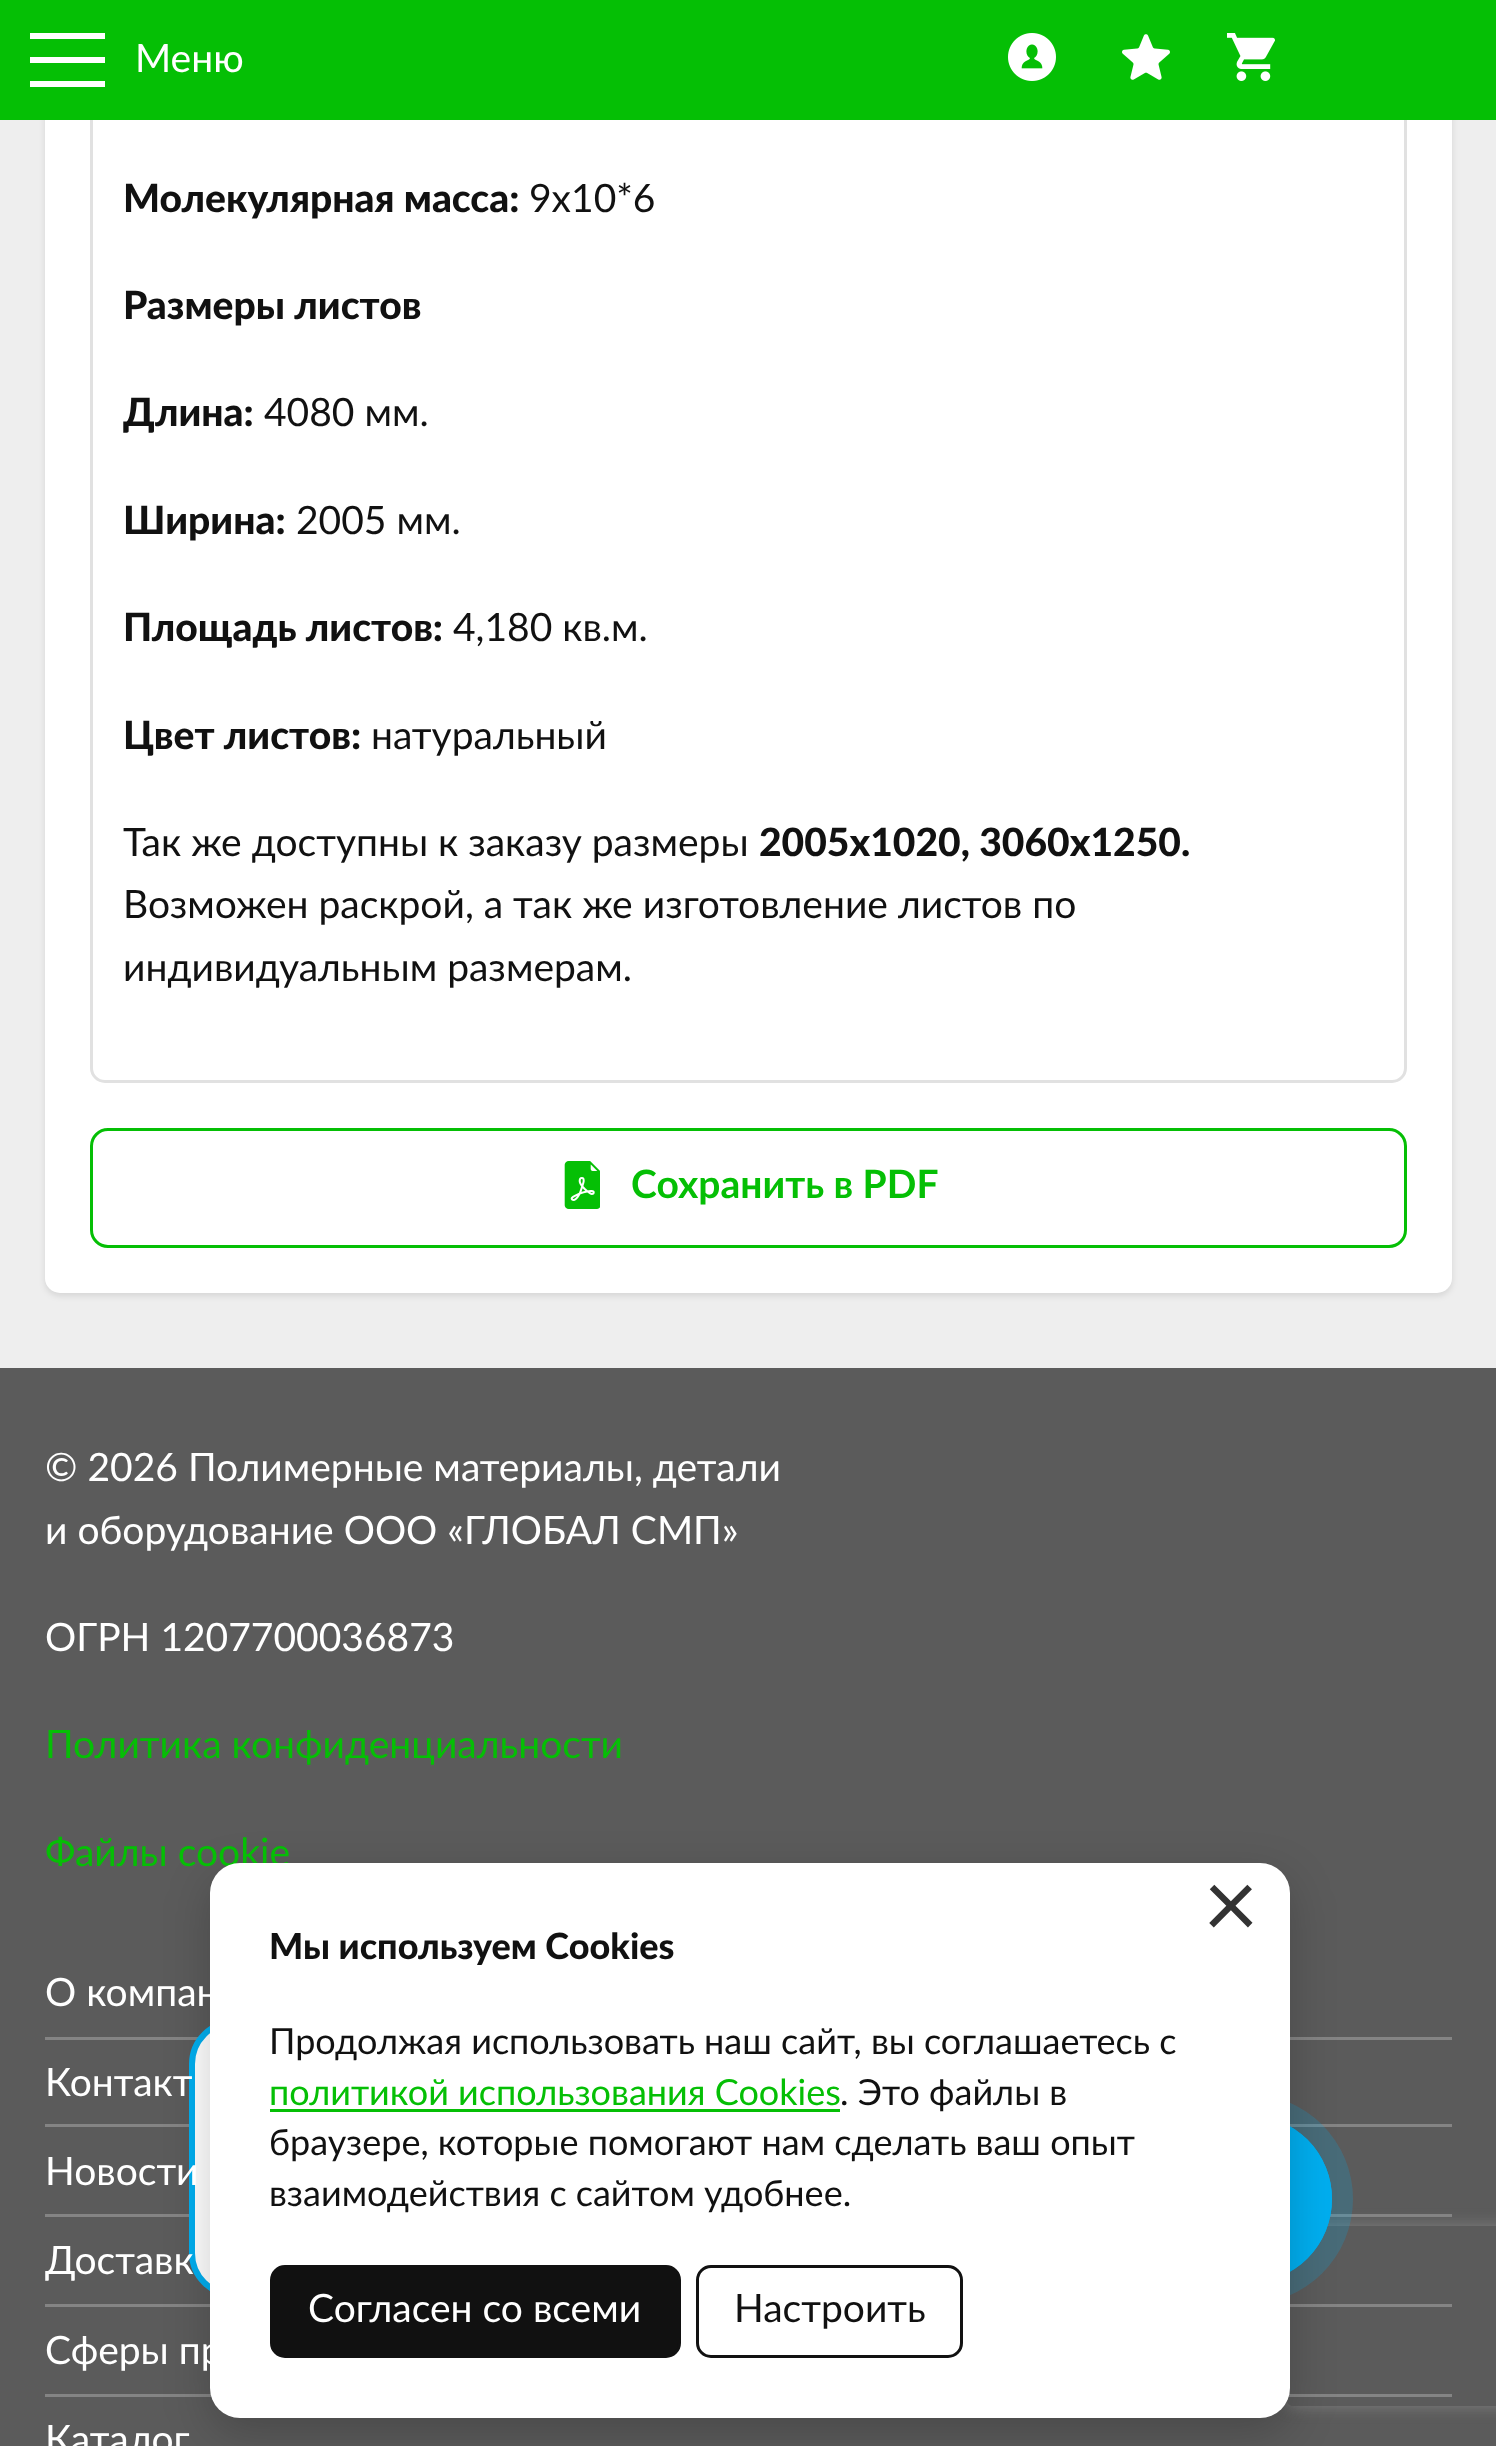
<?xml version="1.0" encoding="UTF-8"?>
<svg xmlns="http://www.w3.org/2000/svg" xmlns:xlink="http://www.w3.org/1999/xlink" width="1496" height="2446">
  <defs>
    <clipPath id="clip1"><path d="M 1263 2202 h 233 v 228 h -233 z m 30 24 h 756 c 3.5 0 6 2.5 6 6 v 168 c 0 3.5 -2.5 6 -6 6 h -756 c -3.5 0 -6 -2.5 -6 -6 v -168 c 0 -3.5 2.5 -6 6 -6 z" clip-rule="evenodd" /></clipPath>
  </defs>
  <rect width="100%" height="100%" fill="#eeeeee" />
  <rect x="45" y="-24" width="1407" height="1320" rx="15" fill="#000000" fill-opacity="0.1" filter="blur(3px)" />
  <rect x="45" y="-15" width="1407" height="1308" rx="15" fill="#ffffff" />
  <path d="M 91.5 -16.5 h 1314 v 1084.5 c 0 7.5 -6 13.5 -13.5 13.5 h -1287 c -7.5 0 -13.5 -6 -13.5 -13.5 z" fill="none" stroke="#e1e1e1" stroke-width="3" />
  <rect width="1496" height="120" fill="#05bf05" />
  <rect x="30" y="33" width="75" height="6" fill="#ffffff" />
  <rect x="30" y="57" width="75" height="6" fill="#ffffff" />
  <rect x="30" y="81" width="75" height="6" fill="#ffffff" />
  <image x="1008" y="33" width="48" height="48" xlink:href="image1.png" />
  <image x="1122" y="34" width="48" height="46" xlink:href="image2.png" />
  <image x="1227" y="33" width="48" height="48" xlink:href="image3.png" />
  <rect x="91.5" y="1129.5" width="1314" height="117" rx="16.5" fill="none" stroke="#05bf05" stroke-width="3" />
  <image x="564" y="1161" width="36" height="48" xlink:href="image4.png" />
  <rect y="1368" width="1496" height="1078" fill="#5b5b5b" />
  <rect x="45" y="2037" width="1407" height="3" fill="#848484" />
  <rect x="45" y="2124" width="1407" height="3" fill="#848484" />
  <rect x="45" y="2214" width="1407" height="3" fill="#848484" />
  <rect x="45" y="2304" width="1407" height="3" fill="#848484" />
  <rect x="45" y="2394" width="1407" height="3" fill="#848484" />
  <rect x="192" y="2022" width="930" height="273" rx="42" fill="#ffffff" stroke="#00aeef" stroke-width="6" />
  <g clip-path="url(#clip1)">
    <rect x="1287" y="2226" width="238" height="180" rx="6" fill="#808080" filter="blur(7.5px)" />
  </g>
  <circle cx="1248" cy="2199" r="105" fill="#00aeef" fill-opacity="0.2" />
  <circle cx="1248" cy="2199" r="83" fill="none" stroke="#00aeef" stroke-width="2" />
  <circle cx="1248" cy="2199" r="84" fill="#00aeef" />
  <rect x="210" y="1878" width="1080" height="555" rx="30" fill="#000000" fill-opacity="0.2" filter="blur(22.5px)" />
  <text x="135" y="72" style="font-family: Lato; font-size: 39px; fill: #ffffff">Меню</text>
  <text x="123" y="212" style="font-family: Lato; font-size: 39px; font-weight: 900; fill: #111111">Молекулярная масса:</text>
  <text x="529" y="212" style="font-family: Lato; font-size: 39px; fill: #111111">9x10*6</text>
  <text x="123" y="319" style="font-family: Lato; font-size: 39px; font-weight: 900; fill: #111111">Размеры листов</text>
  <text x="123" y="426" style="font-family: Lato; font-size: 39px; font-weight: 900; fill: #111111">Длина:</text>
  <text x="264" y="426" style="font-family: Lato; font-size: 39px; fill: #111111">4080 мм.</text>
  <text x="123" y="534" style="font-family: Lato; font-size: 39px; font-weight: 900; fill: #111111">Ширина:</text>
  <text x="296" y="534" style="font-family: Lato; font-size: 39px; fill: #111111">2005 мм.</text>
  <text x="123" y="641" style="font-family: Lato; font-size: 39px; font-weight: 900; fill: #111111">Площадь листов:</text>
  <text x="453" y="641" style="font-family: Lato; font-size: 39px; fill: #111111">4,180 кв.м.</text>
  <text x="123" y="749" style="font-family: Lato; font-size: 39px; font-weight: 900; fill: #111111">Цвет листов:</text>
  <text x="371" y="749" style="font-family: Lato; font-size: 39px; fill: #111111">натуральный</text>
  <text x="123" y="856" style="font-family: Lato; font-size: 39px; fill: #111111">Так же доступны к заказу размеры</text>
  <text x="759" y="856" style="font-family: Lato; font-size: 39px; font-weight: 900; fill: #111111">2005х1020, 3060х1250.</text>
  <text x="123" y="918" style="font-family: Lato; font-size: 39px; fill: #111111">Возможен раскрой, а так же изготовление листов по</text>
  <text x="123" y="981" style="font-family: Lato; font-size: 39px; fill: #111111">индивидуальным размерам.</text>
  <text x="631" y="1198" style="font-family: Lato; font-size: 39px; font-weight: bold; fill: #05bf05">Сохранить в PDF</text>
  <text x="45" y="1481" style="font-family: Lato; font-size: 39px; fill: #ffffff">© 2026 Полимерные материалы, детали</text>
  <text x="45" y="1544" style="font-family: Lato; font-size: 39px; fill: #ffffff">и оборудование ООО «ГЛОБАЛ СМП»</text>
  <text x="45" y="1651" style="font-family: Lato; font-size: 39px; fill: #ffffff">ОГРН 1207700036873</text>
  <text x="45" y="1758" style="font-family: Lato; font-size: 39px; fill: #05bf05">Политика конфиденциальности</text>
  <text x="45" y="1866" style="font-family: Lato; font-size: 39px; fill: #05bf05">Файлы cookie</text>
  <text x="45" y="2006" style="font-family: Lato; font-size: 39px; fill: #ffffff">О компан</text>
  <text x="45" y="2096" style="font-family: Lato; font-size: 39px; fill: #ffffff">Контакт</text>
  <text x="45" y="2185" style="font-family: Lato; font-size: 39px; fill: #ffffff">Новости</text>
  <text x="45" y="2274" style="font-family: Lato; font-size: 39px; fill: #ffffff">Доставк</text>
  <text x="45" y="2364" style="font-family: Lato; font-size: 39px; fill: #ffffff">Сферы пр</text>
  <text x="45" y="2453" style="font-family: Lato; font-size: 39px; fill: #ffffff">Каталог</text>
  <rect x="210" y="1863" width="1080" height="555" rx="30" fill="#ffffff" />
  <text x="1203" y="1938" style="font-family: Lato; font-size: 96px; fill: #333333">×</text>
  <text x="269" y="1959" style="font-family: Lato; font-size: 36px; font-weight: 900; fill: #111111">Мы используем Cookies</text>
  <text x="269" y="2054" style="font-family: Lato; font-size: 36px; fill: #111111">Продолжая использовать наш сайт, вы соглашаетесь с</text>
  <text x="269" y="2105" style="font-family: Lato; font-size: 36px; fill: #05bf05">политикой использования Cookies</text>
  <rect x="270" y="2109" width="570" height="3" fill="#05bf05" />
  <text x="840" y="2105" style="font-family: Lato; font-size: 36px; fill: #111111">. Это файлы в</text>
  <text x="269" y="2155" style="font-family: Lato; font-size: 36px; fill: #111111">браузере, которые помогают нам сделать ваш опыт</text>
  <text x="269" y="2206" style="font-family: Lato; font-size: 36px; fill: #111111">взаимодействия с сайтом удобнее.</text>
  <rect x="271.5" y="2266.5" width="408" height="90" rx="13.5" fill="#111111" stroke="#111111" stroke-width="3" />
  <text x="308" y="2322" style="font-family: Lato; font-size: 39px; fill: #ffffff">Согласен со всеми</text>
  <rect x="697.5" y="2266.5" width="264" height="90" rx="13.5" fill="none" stroke="#111111" stroke-width="3" />
  <text x="734" y="2322" style="font-family: Lato; font-size: 39px; fill: #111111">Настроить</text>
</svg>
